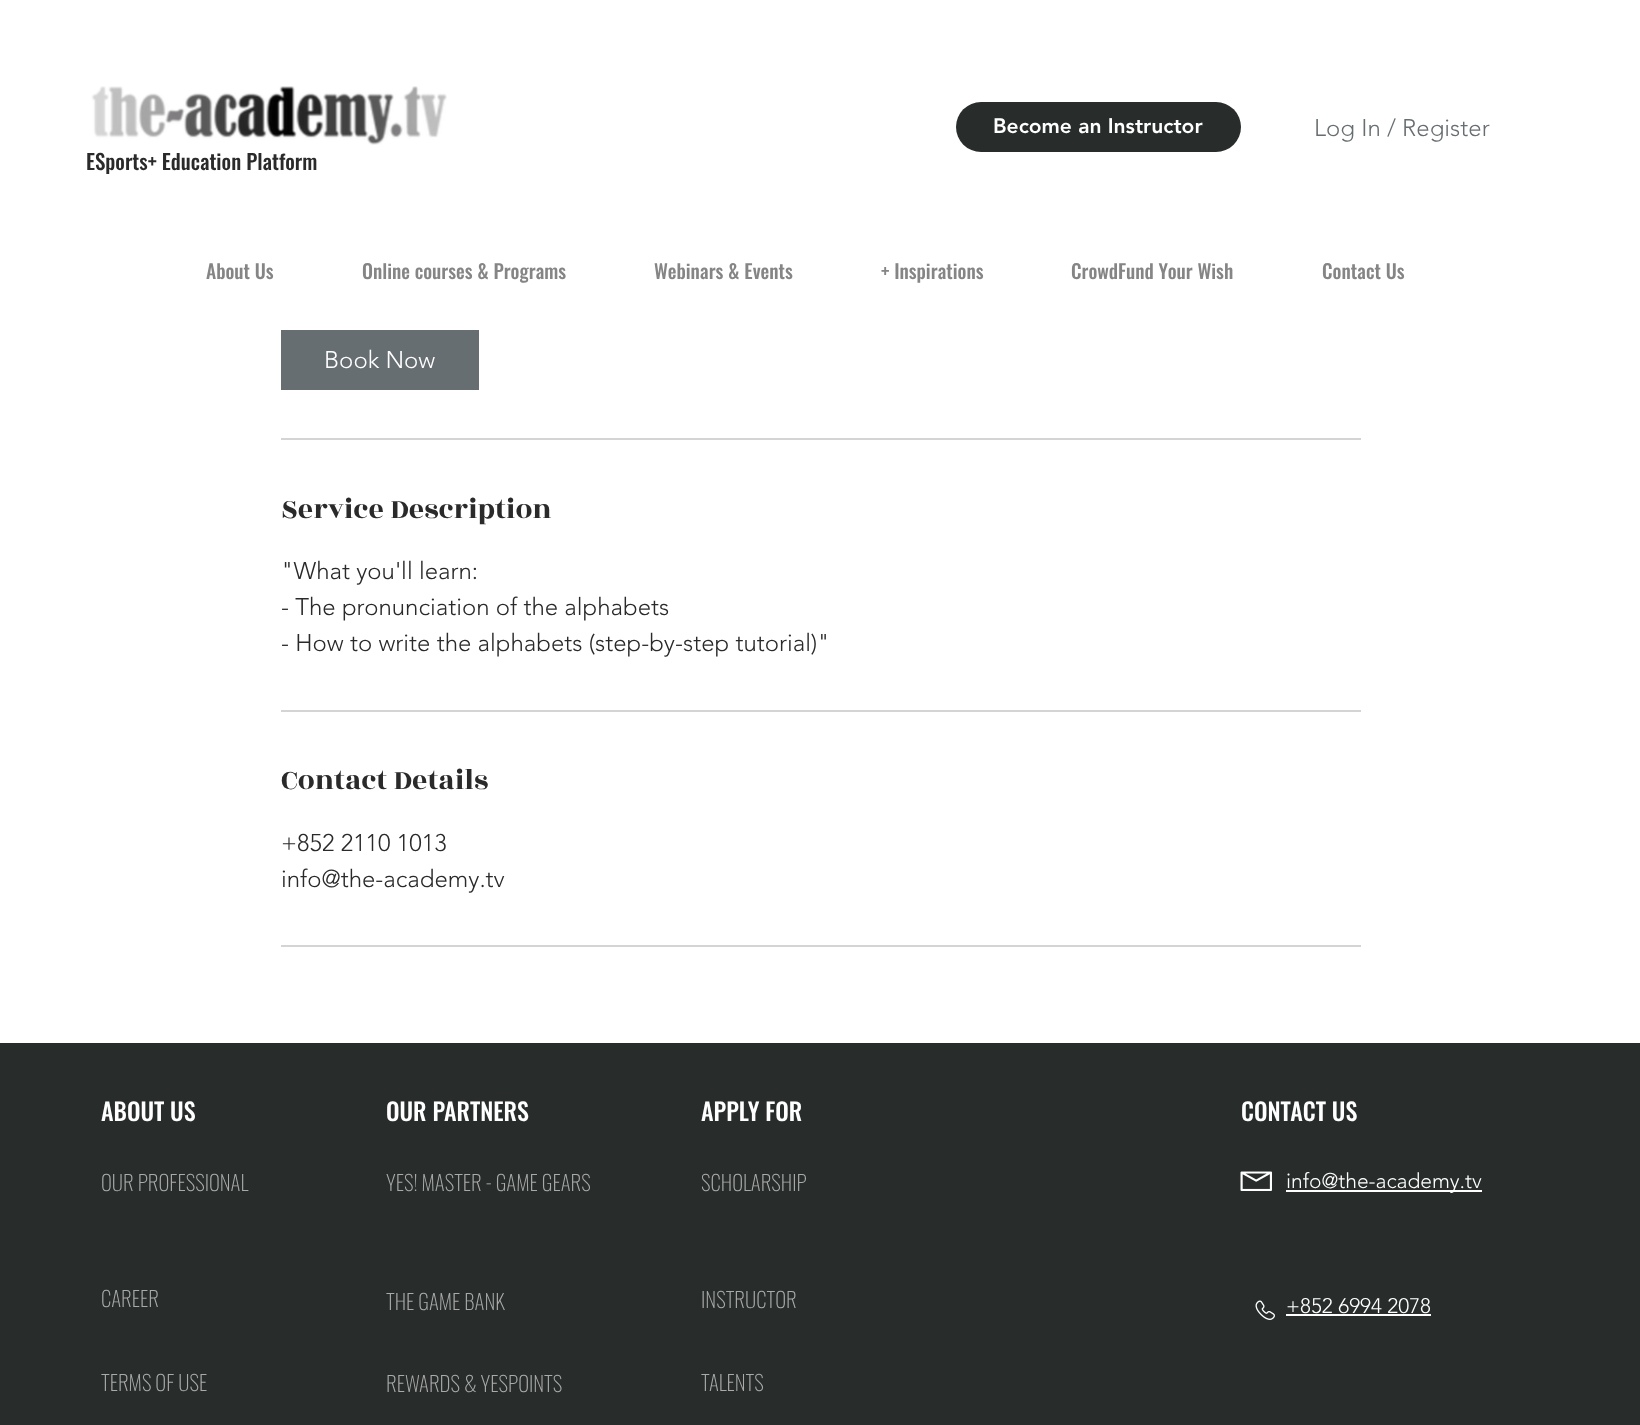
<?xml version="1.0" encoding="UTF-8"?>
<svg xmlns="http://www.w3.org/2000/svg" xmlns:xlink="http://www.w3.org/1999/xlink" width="1640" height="1425">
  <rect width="100%" height="100%" fill="#ffffff" />
  <image x="91" y="86" width="356" height="59" xlink:href="image1.png" />
  <rect x="956" y="102" width="285" height="50" rx="25" fill="#282d2c" />
  <rect x="281" y="330" width="198" height="60" fill="#676e71" />
  <rect x="281" y="438" width="1080" height="2" fill="#d4d4d4" />
  <rect x="281" y="710" width="1080" height="2" fill="#d4d4d4" />
  <rect x="281" y="945" width="1080" height="2" fill="#d4d4d4" />
  <rect y="1043" width="1640" height="382" fill="#282d2c" />
  <image x="1240" y="1171" width="32" height="20" xlink:href="image2.png" />
  <rect x="1286" y="1190" width="196" height="2" fill="#fffffe" />
  <image x="1255" y="1300" width="20" height="20" xlink:href="image3.png" />
  <rect x="1286" y="1314" width="145" height="2" fill="#ffffff" />
  <text x="993" y="133" style="font-family: 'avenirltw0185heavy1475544'; font-size: 21px; font-weight: 900; fill: #ffffff">Become an Instructor</text>
  <text x="1314" y="136" style="font-family: 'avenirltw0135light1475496'; font-size: 24px; font-weight: 300; fill: #676e71">Log In / Register</text>
  <text x="86" y="170" style="font-family: Oswald; font-size: 21px; font-weight: 500; fill: #2a2a2a">ESports+ Education Platform</text>
  <text x="206" y="279" style="font-family: Oswald; font-size: 19.5px; font-weight: 500; fill: #858585">About Us</text>
  <text x="362" y="279" style="font-family: Oswald; font-size: 19.5px; font-weight: 500; fill: #858585">Online courses &amp; Programs</text>
  <text x="654" y="279" style="font-family: Oswald; font-size: 19.5px; font-weight: 500; fill: #858585">Webinars &amp; Events</text>
  <text x="881" y="279" style="font-family: Oswald; font-size: 19.5px; font-weight: 500; fill: #858585">+ Inspirations</text>
  <text x="1071" y="279" style="font-family: Oswald; font-size: 19.5px; font-weight: 500; fill: #858585">CrowdFund Your Wish</text>
  <text x="1322" y="279" style="font-family: Oswald; font-size: 19.5px; font-weight: 500; fill: #858585">Contact Us</text>
  <text x="324" y="368" style="font-family: 'avenirltw0135light1475496'; font-size: 24px; font-weight: 300; fill: #ffffff">Book Now</text>
  <text x="281" y="518" style="font-family: Rozha One; font-size: 30px; fill: #2a2a2a">Service Description</text>
  <text x="281" y="579" style="font-family: 'avenirltw0135light1475496'; font-size: 24px; font-weight: 300; fill: #2a2a2a">"What you'll learn:</text>
  <text x="281" y="615" style="font-family: 'avenirltw0135light1475496'; font-size: 24px; font-weight: 300; fill: #2a2a2a">- The pronunciation of the alphabets</text>
  <text x="281" y="651" style="font-family: 'avenirltw0135light1475496'; font-size: 24px; font-weight: 300; fill: #2a2a2a">- How to write the alphabets (step-by-step tutorial)"</text>
  <text x="281" y="789" style="font-family: Rozha One; font-size: 30px; fill: #2a2a2a">Contact Details</text>
  <text x="281" y="851" style="font-family: 'avenirltw0135light1475496'; font-size: 24px; font-weight: 300; fill: #2a2a2a">+852 2110 1013</text>
  <text x="281" y="887" style="font-family: 'avenirltw0135light1475496'; font-size: 24px; font-weight: 300; fill: #2a2a2a">info@the-academy.tv</text>
  <text x="101" y="1121" style="font-family: Oswald; font-size: 24px; font-weight: 500; fill: #ffffff">ABOUT US</text>
  <text x="386" y="1121" style="font-family: Oswald; font-size: 24px; font-weight: 500; fill: #ffffff">OUR PARTNERS</text>
  <text x="701" y="1121" style="font-family: Oswald; font-size: 24px; font-weight: 500; fill: #ffffff">APPLY FOR</text>
  <text x="1241" y="1121" style="font-family: Oswald; font-size: 24px; font-weight: 500; fill: #ffffff">CONTACT US</text>
  <text x="101" y="1191" style="font-family: Oswald; font-size: 21px; font-weight: 200; fill: #aaaaaa">OUR PROFESSIONAL</text>
  <text x="386" y="1191" style="font-family: Oswald; font-size: 21px; font-weight: 200; fill: #aaaaaa">YES! MASTER - GAME GEARS</text>
  <text x="701" y="1191" style="font-family: Oswald; font-size: 21px; font-weight: 200; fill: #aaaaaa">SCHOLARSHIP</text>
  <text x="1286" y="1188" style="font-family: 'avenirltw0135light1475496'; font-size: 21px; font-weight: 300; fill: #ffffff">info@the-academy.tv</text>
  <text x="101" y="1307" style="font-family: Oswald; font-size: 21px; font-weight: 200; fill: #aaaaaa">CAREER</text>
  <text x="386" y="1310" style="font-family: Oswald; font-size: 21px; font-weight: 200; fill: #aaaaaa">THE GAME BANK</text>
  <text x="701" y="1308" style="font-family: Oswald; font-size: 21px; font-weight: 200; fill: #aaaaaa">INSTRUCTOR</text>
  <text x="1286" y="1313" style="font-family: 'avenirltw0135light1475496'; font-size: 21px; font-weight: 300; fill: #ffffff">+852 6994 2078</text>
  <text x="101" y="1391" style="font-family: Oswald; font-size: 21px; font-weight: 200; fill: #aaaaaa">TERMS OF USE</text>
  <text x="386" y="1392" style="font-family: Oswald; font-size: 21px; font-weight: 200; fill: #aaaaaa">REWARDS &amp; YESPOINTS</text>
  <text x="701" y="1391" style="font-family: Oswald; font-size: 21px; font-weight: 200; fill: #aaaaaa">TALENTS</text>
</svg>
